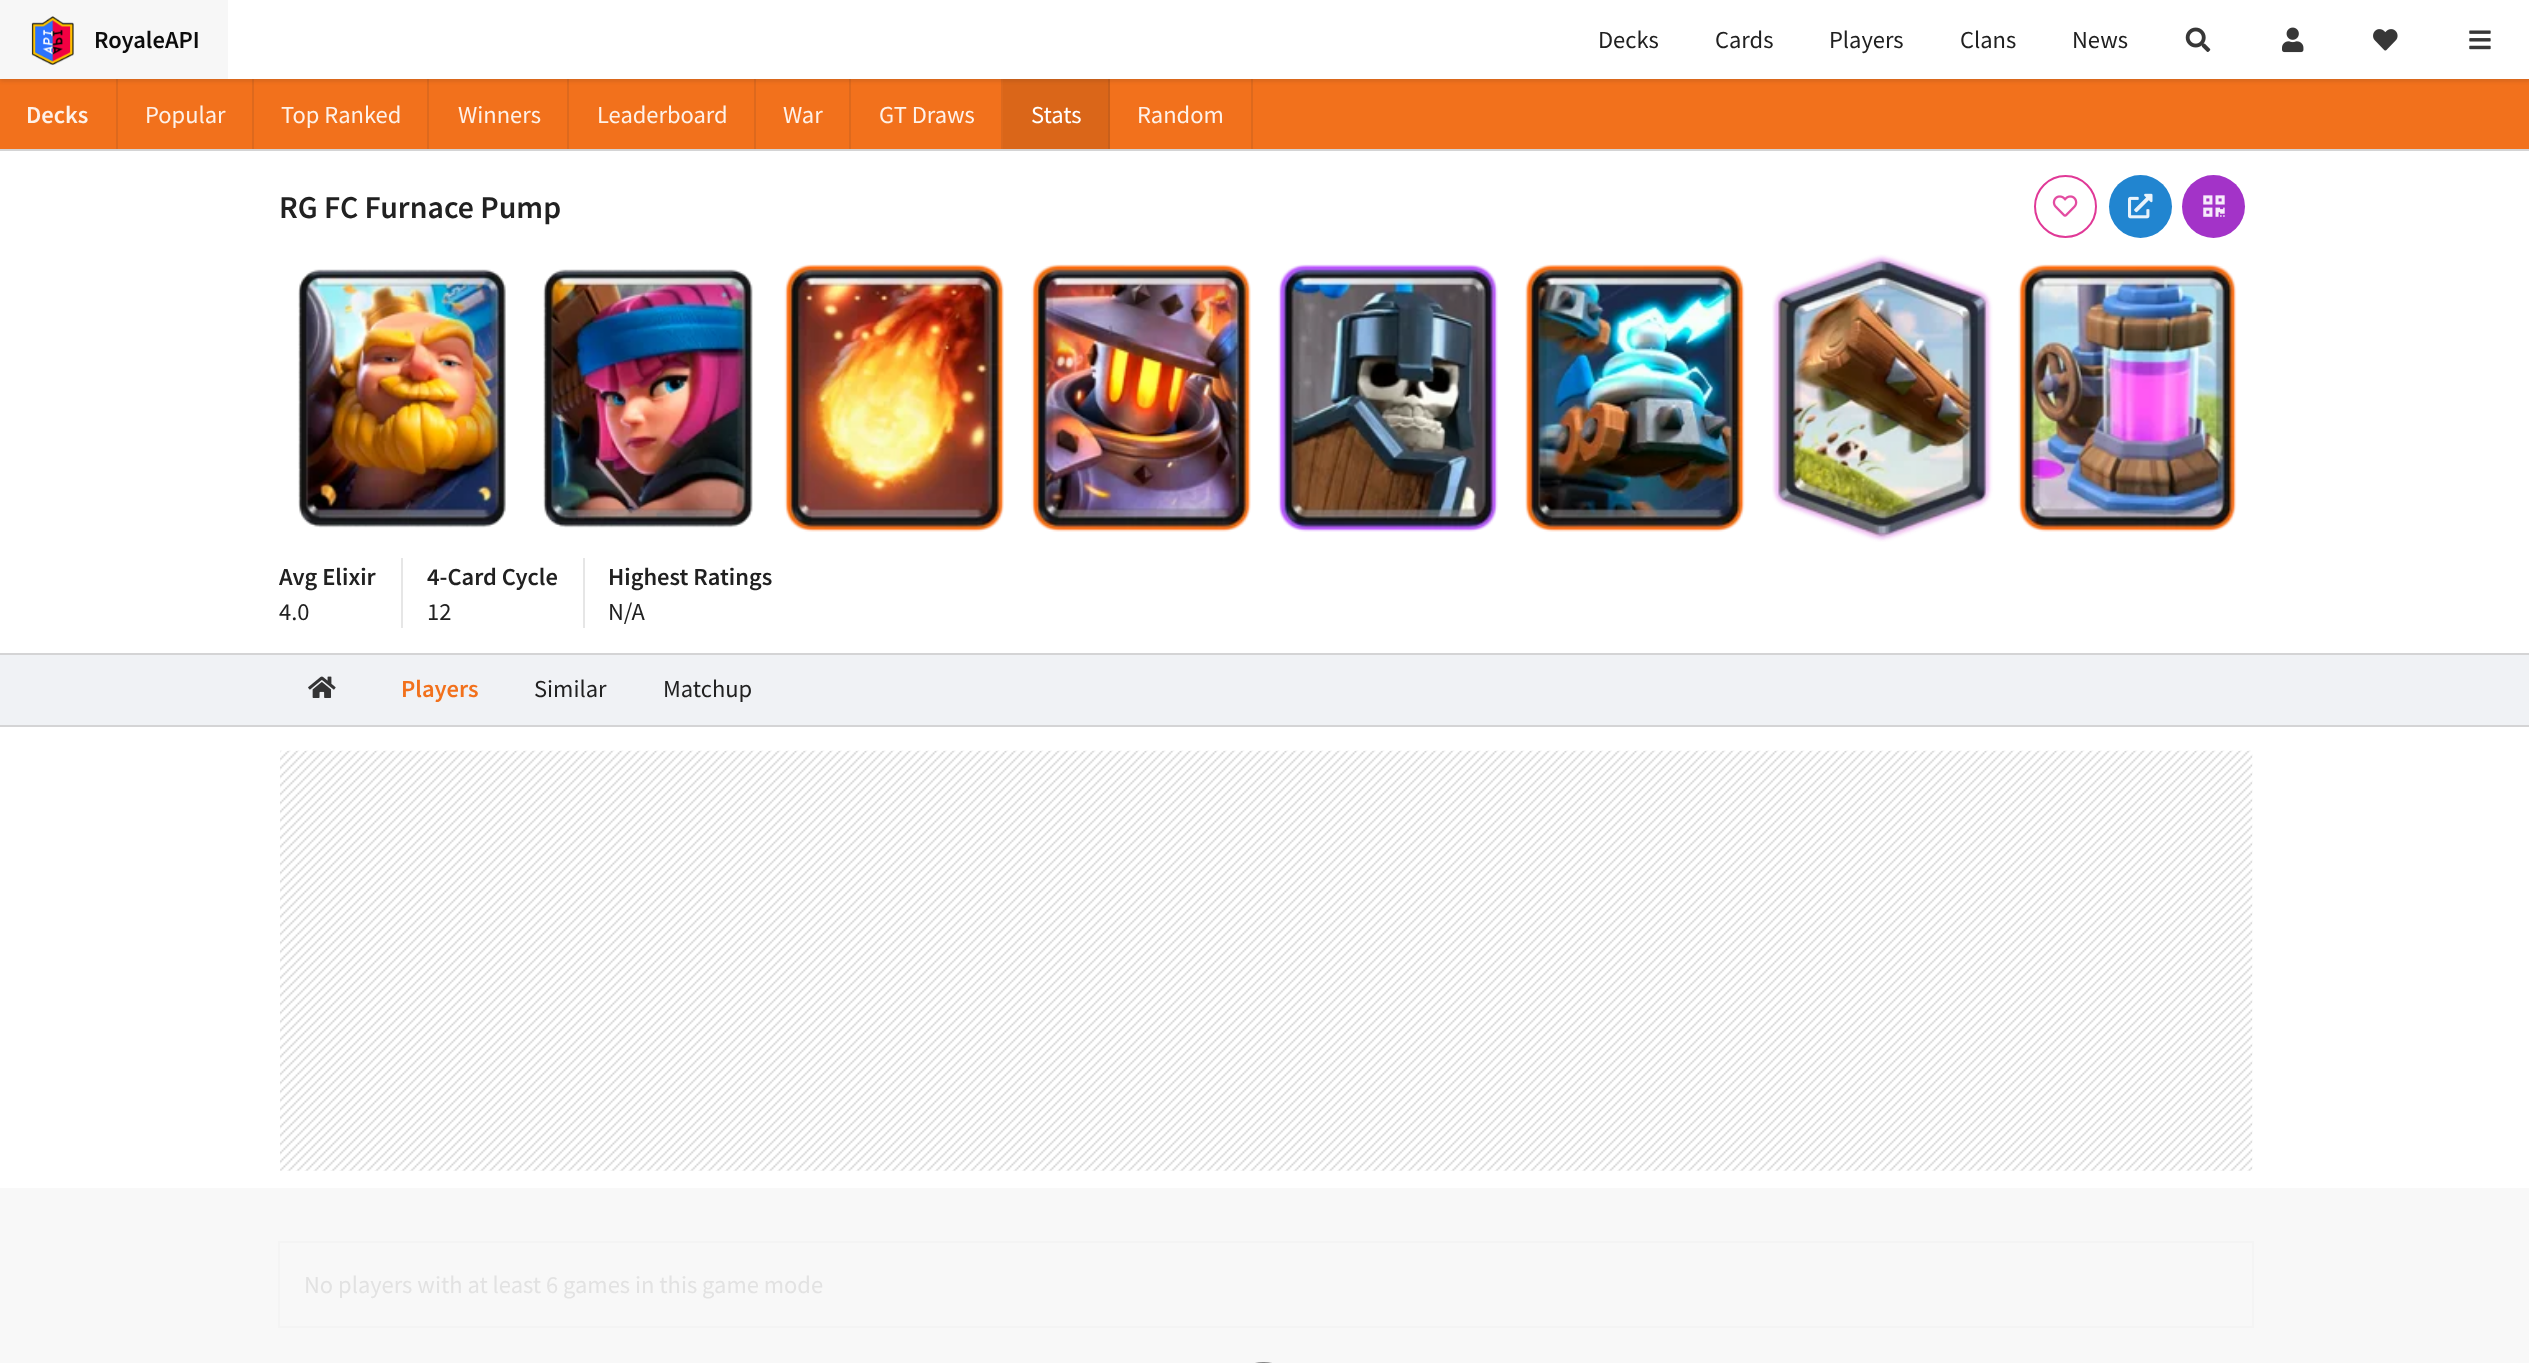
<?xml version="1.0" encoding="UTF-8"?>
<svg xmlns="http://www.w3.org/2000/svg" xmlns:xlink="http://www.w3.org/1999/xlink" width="2529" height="1363">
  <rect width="100%" height="100%" fill="#f0f2f5" />
  <rect y="79" width="2529" height="70" fill="#f2711c" />
  <rect x="116" y="79" width="2" height="70" fill="#dd691d" />
  <rect x="252" y="79" width="2" height="70" fill="#dd691d" />
  <rect x="427" y="79" width="2" height="70" fill="#dd691d" />
  <rect x="567" y="79" width="2" height="70" fill="#dd691d" />
  <rect x="754" y="79" width="2" height="70" fill="#dd691d" />
  <rect x="849" y="79" width="2" height="70" fill="#dd691d" />
  <rect x="1001" y="79" width="2" height="70" fill="#dd691d" />
  <rect x="1003" y="79" width="105" height="70" fill="#da6619" />
  <rect x="1108" y="79" width="2" height="70" fill="#c85f1a" />
  <rect x="1251" y="79" width="2" height="70" fill="#dd691d" />
  <rect y="2" width="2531" height="79" fill="#222426" fill-opacity="0.15" filter="blur(2px)" />
  <rect x="228" width="2301" height="79" fill="#ffffff" />
  <rect width="228" height="79" fill="#f7f7f7" />
  <image x="31" y="16" width="43" height="49" xlink:href="image1.png" />
  <image x="2185" y="27" width="26" height="25" xlink:href="image2.png" />
  <image x="2282" y="27" width="22" height="26" xlink:href="image3.png" />
  <image x="2373" y="29" width="25" height="22" xlink:href="image4.png" />
  <image x="2469" y="30" width="22" height="20" xlink:href="image5.png" />
  <rect x="-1" y="150" width="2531" height="504" fill="#ffffff" stroke="#d4d4d5" stroke-width="2" />
  <circle cx="2065.5" cy="206.5" r="30.5" fill="none" stroke="#e03997" stroke-width="2" />
  <image x="2052" y="195" width="26" height="22" xlink:href="image6.png" />
  <circle cx="2140.5" cy="206.5" r="31.5" fill="#2185d0" />
  <image x="2128" y="193" width="25" height="26" xlink:href="image7.png" />
  <circle cx="2213.5" cy="206.5" r="31.5" fill="#a333c8" />
  <image x="2203" y="195" width="22" height="22" xlink:href="image8.png" />
  <image x="298" y="269" width="208" height="259" xlink:href="image9.png" />
  <image x="543" y="269" width="210" height="259" xlink:href="image10.png" />
  <image x="784" y="264" width="220" height="268" xlink:href="image11.png" />
  <image x="1031" y="264" width="220" height="268" xlink:href="image12.png" />
  <image x="1278" y="264" width="220" height="268" xlink:href="image13.png" />
  <image x="1525" y="264" width="220" height="268" xlink:href="image14.png" />
  <image x="1772" y="254" width="221" height="288" xlink:href="image15.png" />
  <image x="2018" y="264" width="219" height="268" xlink:href="image16.png" />
  <rect x="401" y="558" width="2" height="70" fill="#e6e6e6" />
  <rect x="583" y="558" width="2" height="70" fill="#e6e6e6" />
  <image x="308" y="676" width="28" height="22" xlink:href="image17.png" />
  <rect y="727" width="2529" height="461" fill="#ffffff" />
  <rect y="1188" width="2529" height="175" fill="#f8f8f8" />
  <rect x="-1" y="726" width="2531" height="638" fill="none" stroke="#d4d4d5" stroke-width="2" />
  <image x="280" y="750" width="1973" height="421" xlink:href="image18.png" />
  <rect x="279" y="1242" width="1974" height="85" fill="none" stroke="#f4f4f4" stroke-width="2" />
  <rect x="1245" y="1363" width="37" height="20" rx="18" fill="none" stroke="#888888" stroke-width="2" />
  <text x="94" y="48" style="font-family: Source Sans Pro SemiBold; font-size: 24.5px; font-weight: 600; fill: #0c0c0c">RoyaleAPI</text>
  <text x="1598" y="48" style="font-family: Source Sans Pro; font-size: 24.5px; fill: #212121">Decks</text>
  <text x="1715" y="48" style="font-family: Source Sans Pro; font-size: 24.5px; fill: #212121">Cards</text>
  <text x="1829" y="48" style="font-family: Source Sans Pro; font-size: 24.5px; fill: #212121">Players</text>
  <text x="1960" y="48" style="font-family: Source Sans Pro; font-size: 24.5px; fill: #212121">Clans</text>
  <text x="2072" y="48" style="font-family: Source Sans Pro; font-size: 24.5px; fill: #212121">News</text>
  <text x="26" y="123" style="font-family: Source Sans Pro SemiBold; font-size: 24.5px; font-weight: 600; fill: #fef1e8">Decks</text>
  <text x="145" y="123" style="font-family: Source Sans Pro; font-size: 24.5px; fill: #fef1e8">Popular</text>
  <text x="281" y="123" style="font-family: Source Sans Pro; font-size: 24.5px; fill: #fef1e8">Top Ranked</text>
  <text x="458" y="123" style="font-family: Source Sans Pro; font-size: 24.5px; fill: #fef1e8">Winners</text>
  <text x="597" y="123" style="font-family: Source Sans Pro; font-size: 24.5px; fill: #fef1e8">Leaderboard</text>
  <text x="783" y="123" style="font-family: Source Sans Pro; font-size: 24.5px; fill: #fef1e8">War</text>
  <text x="879" y="123" style="font-family: Source Sans Pro; font-size: 24.5px; fill: #fef1e8">GT Draws</text>
  <text x="1031" y="123" style="font-family: Source Sans Pro; font-size: 24.5px; fill: #ffffff">Stats</text>
  <text x="1137" y="123" style="font-family: Source Sans Pro; font-size: 24.5px; fill: #fef1e8">Random</text>
  <text x="279" y="218" style="font-family: Source Sans Pro SemiBold; font-size: 31.75px; font-weight: 600; fill: #212121">RG FC Furnace Pump</text>
  <text x="279" y="585" style="font-family: Source Sans Pro SemiBold; font-size: 24.5px; font-weight: 600; fill: #212121">Avg Elixir</text>
  <text x="279" y="620" style="font-family: Source Sans Pro; font-size: 24.5px; fill: #212121">4.0</text>
  <text x="427" y="585" style="font-family: Source Sans Pro SemiBold; font-size: 24.5px; font-weight: 600; fill: #212121">4-Card Cycle</text>
  <text x="427" y="620" style="font-family: Source Sans Pro; font-size: 24.5px; fill: #212121">12</text>
  <text x="608" y="585" style="font-family: Source Sans Pro SemiBold; font-size: 24.5px; font-weight: 600; fill: #212121">Highest Ratings</text>
  <text x="608" y="620" style="font-family: Source Sans Pro; font-size: 24.5px; fill: #212121">N/A</text>
  <text x="401" y="697" style="font-family: Source Sans Pro SemiBold; font-size: 24.5px; font-weight: 600; fill: #f2711c">Players</text>
  <text x="534" y="697" style="font-family: Source Sans Pro; font-size: 24.5px; fill: #212121">Similar</text>
  <text x="663" y="697" style="font-family: Source Sans Pro; font-size: 24.5px; fill: #212121">Matchup</text>
  <text x="304" y="1293" style="font-family: Source Sans Pro; font-size: 24.5px; fill: #e2e2e2">No players with at least 6 games in this game mode</text>
</svg>
